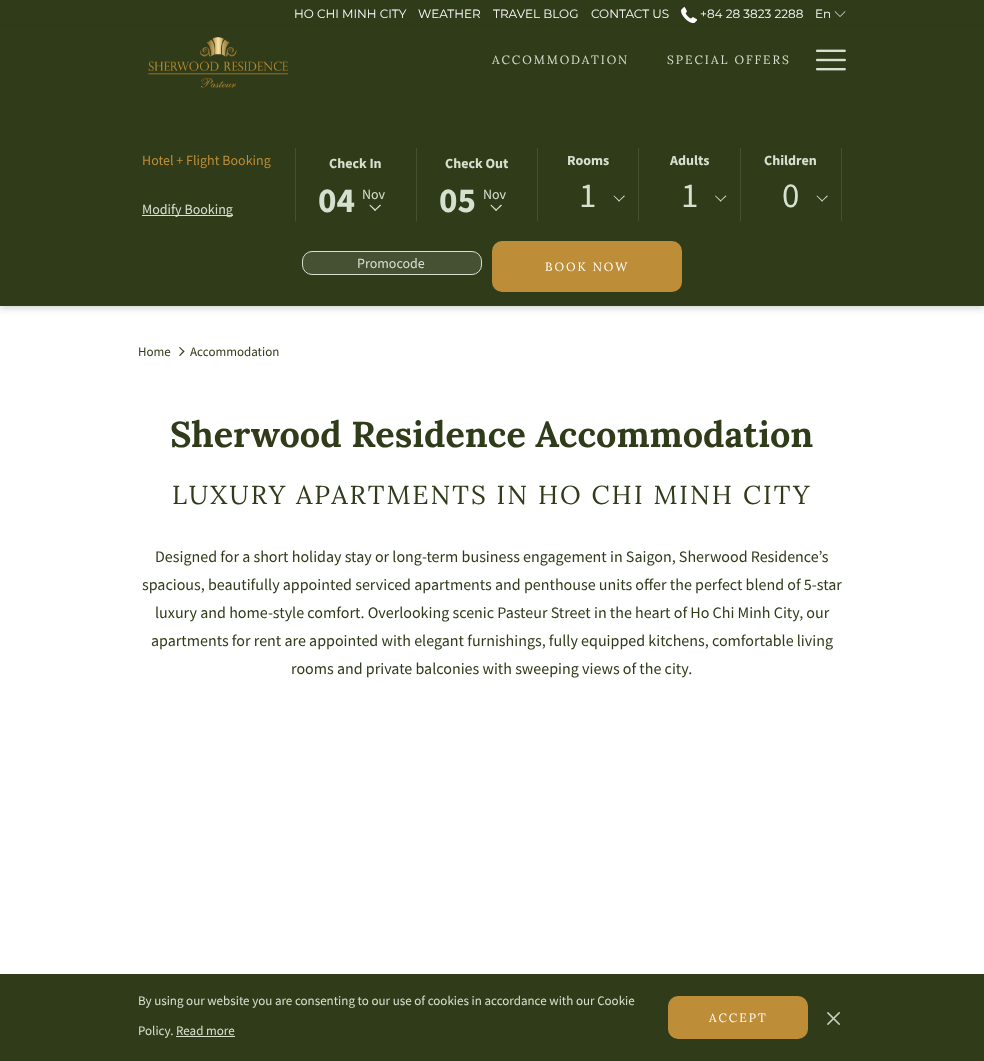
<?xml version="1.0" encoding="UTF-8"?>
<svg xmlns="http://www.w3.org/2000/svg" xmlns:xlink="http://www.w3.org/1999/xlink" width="984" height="1061">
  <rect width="100%" height="100%" fill="#ffffff" />
  <rect width="984" height="28" fill="#2f3b19" />
  <image x="681" y="7" width="16" height="16" xlink:href="image1.png" />
  <image x="834" y="11" width="12" height="6" xlink:href="image2.png" />
  <rect y="31" width="984" height="278" fill="#000000" fill-opacity="0.15" filter="blur(3px)" />
  <rect y="28" width="984" height="278" fill="#2f3b19" />
  <image x="148" y="37" width="140" height="51" xlink:href="image3.png" />
  <image x="816" y="49" width="30" height="22" xlink:href="image4.png" />
  <rect x="295" y="148" width="1" height="73" fill="#465032" />
  <rect x="142" y="215" width="91" height="1" fill="#d5e0cf" />
  <rect x="416" y="148" width="1" height="73" fill="#465032" />
  <path d="M 380 204.5 l 1 1 l -6 5.5 l -0.5 -1 z" fill="#d5e0cf" />
  <path d="M 370 204.5 l 6 5.5 l -1 1 l -5.5 -5.5 z" fill="#d5e0cf" />
  <rect x="537" y="148" width="1" height="73" fill="#465032" />
  <path d="M 501 204.5 l 1 1 l -6 5.5 l -0.5 -1 z" fill="#d5e0cf" />
  <path d="M 491 204.5 l 6 5.5 l -1 1 l -5.5 -5.5 z" fill="#d5e0cf" />
  <rect x="638" y="148" width="1" height="73" fill="#465032" />
  <path d="M 624 195.5 l 1 0.5 l -6 5.5 l -0.5 -0.5 z" fill="#d5e0cf" />
  <path d="M 614 195.5 l 6 5.5 l -1 0.5 l -5.5 -5.5 z" fill="#d5e0cf" />
  <rect x="740" y="148" width="1" height="73" fill="#465032" />
  <path d="M 725.5 195.5 l 1 0.5 l -6 5.5 l -0.5 -0.5 z" fill="#d5e0cf" />
  <path d="M 715.5 195.5 l 6 5.5 l -1 0.5 l -5.5 -5.5 z" fill="#d5e0cf" />
  <rect x="841" y="148" width="1" height="73" fill="#465032" />
  <path d="M 827 195.5 l 1 0.5 l -6 5.5 l -0.5 -0.5 z" fill="#d5e0cf" />
  <path d="M 817 195.5 l 6 5.5 l -1 0.5 l -5.5 -5.5 z" fill="#d5e0cf" />
  <rect x="302.5" y="251.5" width="179" height="23" rx="9.5" fill="#465032" stroke="#d5e0cf" />
  <rect x="492" y="241" width="190" height="51" rx="10" fill="#bd8d38" />
  <path d="M 179 347.5 l 1 -0.5 l 4.5 4.5 l -1 0.5 z" fill="#2f3b19" />
  <path d="M 179 355.5 l 4.5 -5 l 1 1 l -4.5 4.5 z" fill="#2f3b19" />
  <rect y="974" width="984" height="87" fill="#2f3b19" />
  <rect x="176" y="1036" width="59" height="1" fill="#d5e0cf" />
  <rect x="668" y="996" width="140" height="43" rx="10" fill="#bd8d38" />
  <image x="827" y="1012" width="13" height="13" xlink:href="image5.png" />
  <text x="294" y="18" style="font-family: Montserrat; font-size: 12px; fill: #ffffff">HO CHI MINH CITY</text>
  <text x="418" y="18" style="font-family: Montserrat; font-size: 12px; fill: #ffffff">WEATHER</text>
  <text x="493" y="18" style="font-family: Montserrat; font-size: 12px; fill: #ffffff">TRAVEL BLOG</text>
  <text x="591" y="18" style="font-family: Montserrat; font-size: 12px; fill: #ffffff">CONTACT US</text>
  <text x="700" y="18" style="font-family: Montserrat; font-size: 12px; fill: #ffffff">+84 28 3823 2288</text>
  <text x="815" y="18" style="font-family: Montserrat; font-size: 12px; fill: #ffffff">En</text>
  <text x="492" y="64" style="font-family: Lora; font-size: 12px; letter-spacing: 2px; fill: #d5e0cf">ACCOMMODATION</text>
  <text x="667" y="64" style="font-family: Lora; font-size: 12px; letter-spacing: 2px; fill: #d5e0cf">SPECIAL OFFERS</text>
  <text x="142" y="165" style="font-family: Source Sans Pro; font-size: 14px; fill: #bd8d38">Hotel + Flight Booking</text>
  <text x="142" y="214" style="font-family: Source Sans Pro; font-size: 14px; fill: #d5e0cf">Modify Booking</text>
  <text x="329" y="168" style="font-family: Source Sans Pro; font-size: 14px; font-weight: bold; fill: #d5e0cf">Check In</text>
  <text x="318" y="212" style="font-family: Source Sans Pro; font-size: 35px; font-weight: bold; fill: #d5e0cf">04</text>
  <text x="362" y="199" style="font-family: Source Sans Pro; font-size: 14px; fill: #d5e0cf">Nov</text>
  <text x="445" y="168" style="font-family: Source Sans Pro; font-size: 14px; font-weight: bold; fill: #d5e0cf">Check Out</text>
  <text x="439" y="212" style="font-family: Source Sans Pro; font-size: 35px; font-weight: bold; fill: #d5e0cf">05</text>
  <text x="483" y="199" style="font-family: Source Sans Pro; font-size: 14px; fill: #d5e0cf">Nov</text>
  <text x="567" y="165" style="font-family: Source Sans Pro; font-size: 14px; font-weight: bold; fill: #d5e0cf">Rooms</text>
  <text x="579" y="207" style="font-family: Source Sans Pro; font-size: 35px; fill: #d5e0cf">1</text>
  <text x="670" y="165" style="font-family: Source Sans Pro; font-size: 14px; font-weight: bold; fill: #d5e0cf">Adults</text>
  <text x="681" y="207" style="font-family: Source Sans Pro; font-size: 35px; fill: #d5e0cf">1</text>
  <text x="764" y="165" style="font-family: Source Sans Pro; font-size: 14px; font-weight: bold; fill: #d5e0cf">Children</text>
  <text x="782" y="207" style="font-family: Source Sans Pro; font-size: 35px; fill: #d5e0cf">0</text>
  <text x="357" y="268" style="font-family: Source Sans Pro; font-size: 14px; fill: #d5e0cf">Promocode</text>
  <text x="545" y="271" style="font-family: Lora; font-size: 12px; letter-spacing: 2px; fill: #ffffff">BOOK NOW</text>
  <text x="138" y="356" style="font-family: Source Sans Pro; font-size: 13px; fill: #2f3b19">Home</text>
  <text x="190" y="356" style="font-family: Source Sans Pro; font-size: 13px; fill: #2f3b19">Accommodation</text>
  <text x="170" y="447" style="font-family: Lora; font-size: 36px; font-weight: bold; fill: #2f3b19">Sherwood Residence Accommodation</text>
  <text x="172" y="504" style="font-family: Lora; font-size: 26px; letter-spacing: 2px; fill: #2f3b19">LUXURY APARTMENTS IN HO CHI MINH CITY</text>
  <text x="155" y="562" style="font-family: Source Sans Pro; font-size: 16px; fill: #2f3b19">Designed for a short holiday stay or long-term business engagement in Saigon, Sherwood Residence’s</text>
  <text x="142" y="590" style="font-family: Source Sans Pro; font-size: 16px; fill: #2f3b19">spacious, beautifully appointed serviced apartments and penthouse units offer the perfect blend of 5-star</text>
  <text x="155" y="618" style="font-family: Source Sans Pro; font-size: 16px; fill: #2f3b19">luxury and home-style comfort. Overlooking scenic Pasteur Street in the heart of Ho Chi Minh City, our</text>
  <text x="151" y="646" style="font-family: Source Sans Pro; font-size: 16px; fill: #2f3b19">apartments for rent are appointed with elegant furnishings, fully equipped kitchens, comfortable living</text>
  <text x="291" y="674" style="font-family: Source Sans Pro; font-size: 16px; fill: #2f3b19">rooms and private balconies with sweeping views of the city.</text>
  <text x="138" y="1005" style="font-family: Source Sans Pro; font-size: 13px; fill: #d5e0cf">By using our website you are consenting to our use of cookies in accordance with our Cookie</text>
  <text x="138" y="1035" style="font-family: Source Sans Pro; font-size: 13px; fill: #d5e0cf">Policy. Read more</text>
  <text x="709" y="1022" style="font-family: Lora; font-size: 12px; letter-spacing: 2px; fill: #ffffff">ACCEPT</text>
</svg>
